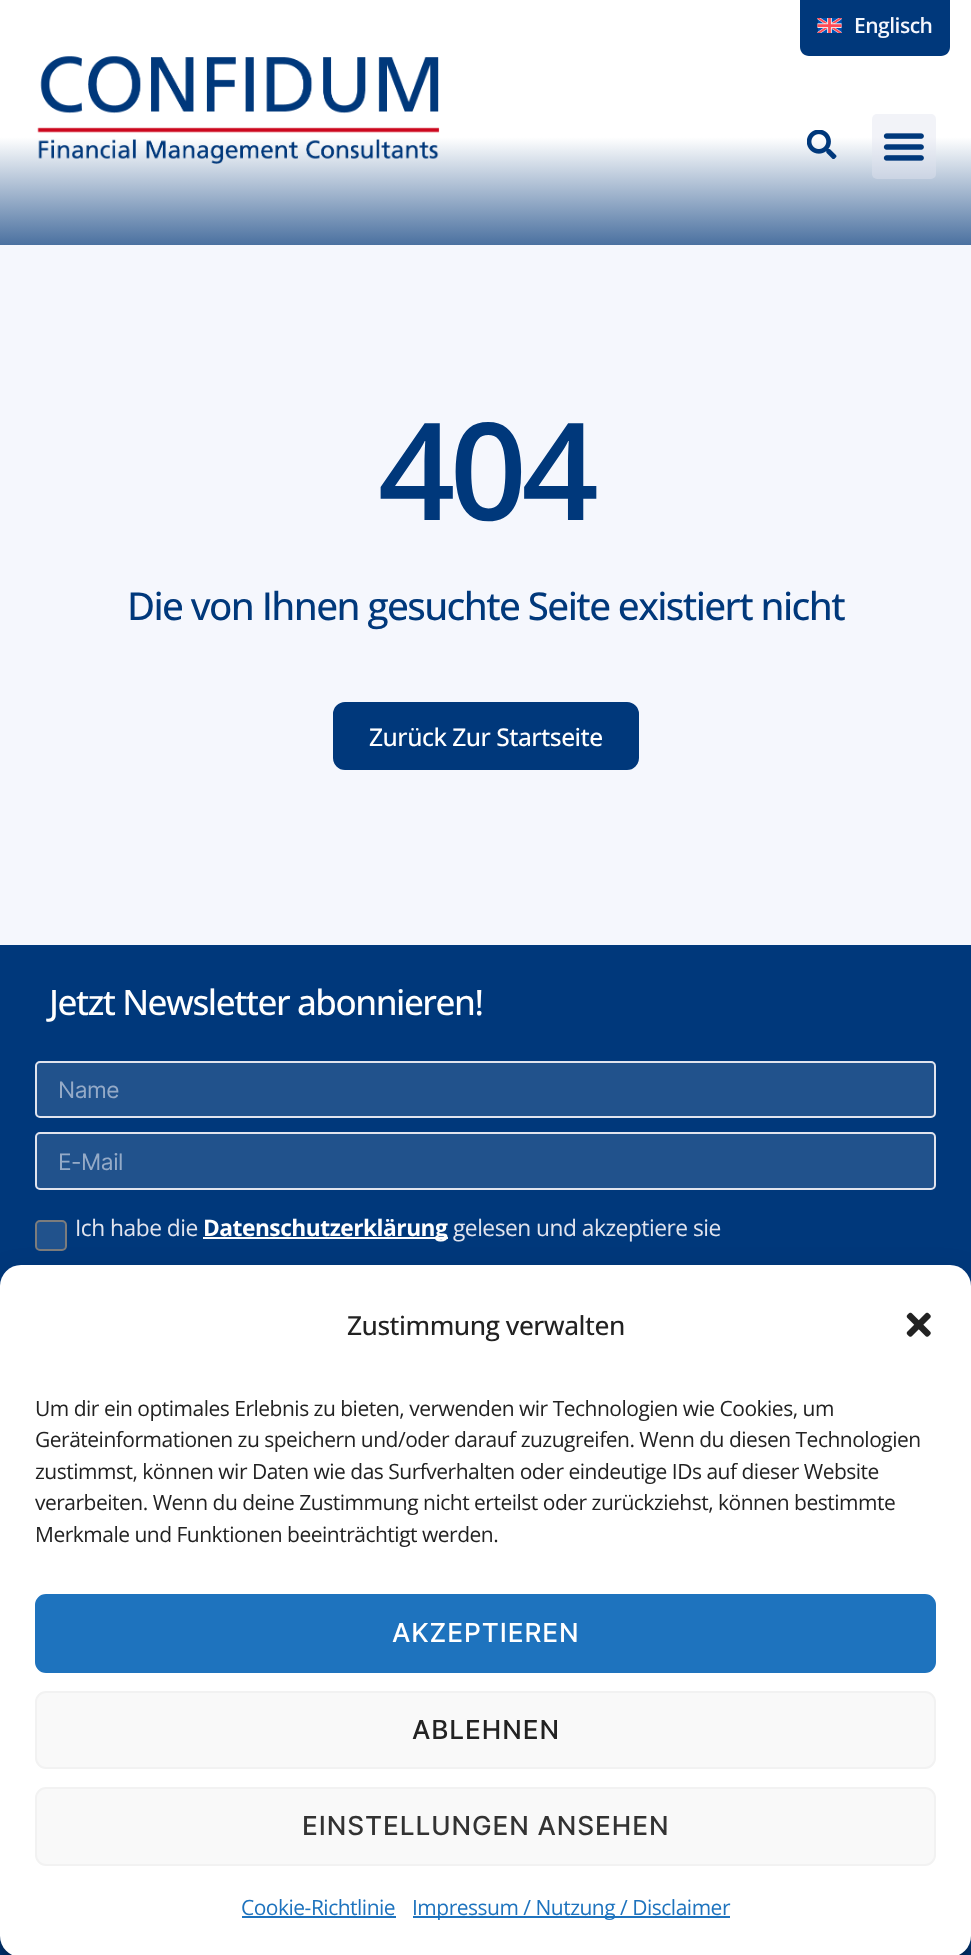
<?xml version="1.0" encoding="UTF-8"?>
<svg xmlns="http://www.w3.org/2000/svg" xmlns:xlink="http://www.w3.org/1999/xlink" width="971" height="1955">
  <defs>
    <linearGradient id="g1" gradientUnits="userSpaceOnUse" x1="486" y1="0" x2="486" y2="245"><stop offset="0.56" stop-color="#ffffff" /><stop offset="1" stop-color="#4b71a0" /></linearGradient>
  </defs>
  <rect width="100%" height="100%" fill="#f5f7fd" />
  <rect width="971" height="245" fill="url(#g1)" />
  <path d="M 800 0 h 150 v 47 c 0 5 -4 9 -9 9 h -132 c -5 0 -9 -4 -9 -9 z" fill="#00387b" />
  <image x="817" y="18" width="25" height="15" xlink:href="image1.png" />
  <image x="37" y="56" width="403" height="108" xlink:href="image2.png" />
  <image x="807" y="130" width="30" height="29" xlink:href="image3.png" />
  <rect x="872" y="114" width="64" height="65" rx="5" fill="#e1e4ee" fill-opacity="0.44" />
  <image x="883" y="133" width="41" height="28" xlink:href="image4.png" />
  <rect x="334" y="703" width="304" height="66" rx="11" fill="#00387b" stroke="#00387b" stroke-width="2" />
  <rect y="945" width="971" height="341" fill="#00387b" />
  <rect x="36" y="1062" width="899" height="55" rx="4" fill="#21528c" stroke="#e1e4ee" stroke-width="2" />
  <rect x="36" y="1133" width="899" height="56" rx="4" fill="#21528c" stroke="#e1e4ee" stroke-width="2" />
  <rect x="36" y="1221" width="30" height="29" rx="4" fill="#21528c" stroke="#7c7c7c" stroke-width="2" />
  <rect x="203" y="1237" width="245" height="2" fill="#ffffff" />
  <rect y="1936" width="971" height="19" fill="#00387b" />
  <rect y="1276" width="971" height="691" rx="21" fill="#000000" fill-opacity="0.23" filter="blur(5px)" />
  <rect y="1283" width="971" height="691" rx="21" fill="#000000" fill-opacity="0.19" filter="blur(17.5px)" />
  <rect y="1265" width="971" height="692" rx="21" fill="#ffffff" />
  <image x="906" y="1312" width="25" height="25" xlink:href="image5.png" />
  <rect x="36" y="1595" width="899" height="77" rx="10" fill="#1e73be" stroke="#1e73be" stroke-width="2" />
  <rect x="36" y="1692" width="899" height="76" rx="10" fill="#f9f9f9" stroke="#f2f2f2" stroke-width="2" />
  <rect x="36" y="1788" width="899" height="77" rx="10" fill="#f9f9f9" stroke="#f2f2f2" stroke-width="2" />
  <rect x="242" y="1916" width="154" height="2" fill="#1e73be" />
  <rect x="413" y="1916" width="317" height="2" fill="#1e73be" />
  <text x="854" y="33" style="font-family: Open Sans; font-size: 21px; font-weight: 600; letter-spacing: -0.5px; fill: #f5f7fd">Englisch</text>
  <text x="378" y="520" style="font-family: Open Sans; font-size: 135px; font-weight: 600; letter-spacing: -5.5px; fill: #00387b">404</text>
  <text x="127" y="620" style="font-family: Open Sans; font-size: 38.5px; font-weight: 500; letter-spacing: -1.6px; fill: #00387b">Die von Ihnen gesuchte Seite existiert nicht</text>
  <text x="369" y="746" style="font-family: Open Sans; font-size: 24.5px; font-weight: 500; letter-spacing: -0.5px; fill: #ffffff">Zurück Zur Startseite</text>
  <text x="49" y="1015" style="font-family: Open Sans; font-size: 35px; font-weight: 500; letter-spacing: -1.45px; fill: #ffffff">Jetzt Newsletter abonnieren!</text>
  <text x="58" y="1098" style="font-family: Inter; font-size: 22.75px; letter-spacing: -0.5px; fill: #94aac7">Name</text>
  <text x="58" y="1170" style="font-family: Inter; font-size: 22.75px; letter-spacing: -0.5px; fill: #94aac7">E-Mail</text>
  <text x="75" y="1236" style="font-family: Open Sans; font-size: 22.75px; letter-spacing: -0.5px; fill: #e1e4ee">Ich habe die</text>
  <text x="203" y="1236" style="font-family: Open Sans; font-size: 22.75px; font-weight: bold; letter-spacing: -0.5px; fill: #ffffff">Datenschutzerklärung</text>
  <text x="453" y="1236" style="font-family: Open Sans; font-size: 22.75px; letter-spacing: -0.5px; fill: #e1e4ee">gelesen und akzeptiere sie</text>
  <text x="347" y="1335" style="font-family: Open Sans; font-size: 26.25px; font-weight: 500; letter-spacing: -0.5px; fill: #222222">Zustimmung verwalten</text>
  <text x="35" y="1416" style="font-family: Open Sans; font-size: 21px; letter-spacing: -0.5px; fill: #222222">Um dir ein optimales Erlebnis zu bieten, verwenden wir Technologien wie Cookies, um</text>
  <text x="35" y="1447" style="font-family: Open Sans; font-size: 21px; letter-spacing: -0.5px; fill: #222222">Geräteinformationen zu speichern und/oder darauf zuzugreifen. Wenn du diesen Technologien</text>
  <text x="35" y="1479" style="font-family: Open Sans; font-size: 21px; letter-spacing: -0.5px; fill: #222222">zustimmst, können wir Daten wie das Surfverhalten oder eindeutige IDs auf dieser Website</text>
  <text x="35" y="1510" style="font-family: Open Sans; font-size: 21px; letter-spacing: -0.5px; fill: #222222">verarbeiten. Wenn du deine Zustimmung nicht erteilst oder zurückziehst, können bestimmte</text>
  <text x="35" y="1542" style="font-family: Open Sans; font-size: 21px; letter-spacing: -0.5px; fill: #222222">Merkmale und Funktionen beeinträchtigt werden.</text>
  <text x="392" y="1642" style="font-family: Inter; font-size: 26.25px; font-weight: 500; letter-spacing: 0.9px; fill: #ffffff">AKZEPTIEREN</text>
  <text x="412" y="1739" style="font-family: Inter; font-size: 26.25px; font-weight: 500; letter-spacing: 0.9px; fill: #222222">ABLEHNEN</text>
  <text x="302" y="1835" style="font-family: Inter; font-size: 26.25px; font-weight: 500; letter-spacing: 0.9px; fill: #333333">EINSTELLUNGEN ANSEHEN</text>
  <text x="241" y="1915" style="font-family: Open Sans; font-size: 21px; letter-spacing: -0.5px; fill: #1e73be">Cookie-Richtlinie</text>
  <text x="412" y="1915" style="font-family: Open Sans; font-size: 21px; letter-spacing: -0.5px; fill: #1e73be">Impressum / Nutzung / Disclaimer</text>
</svg>
